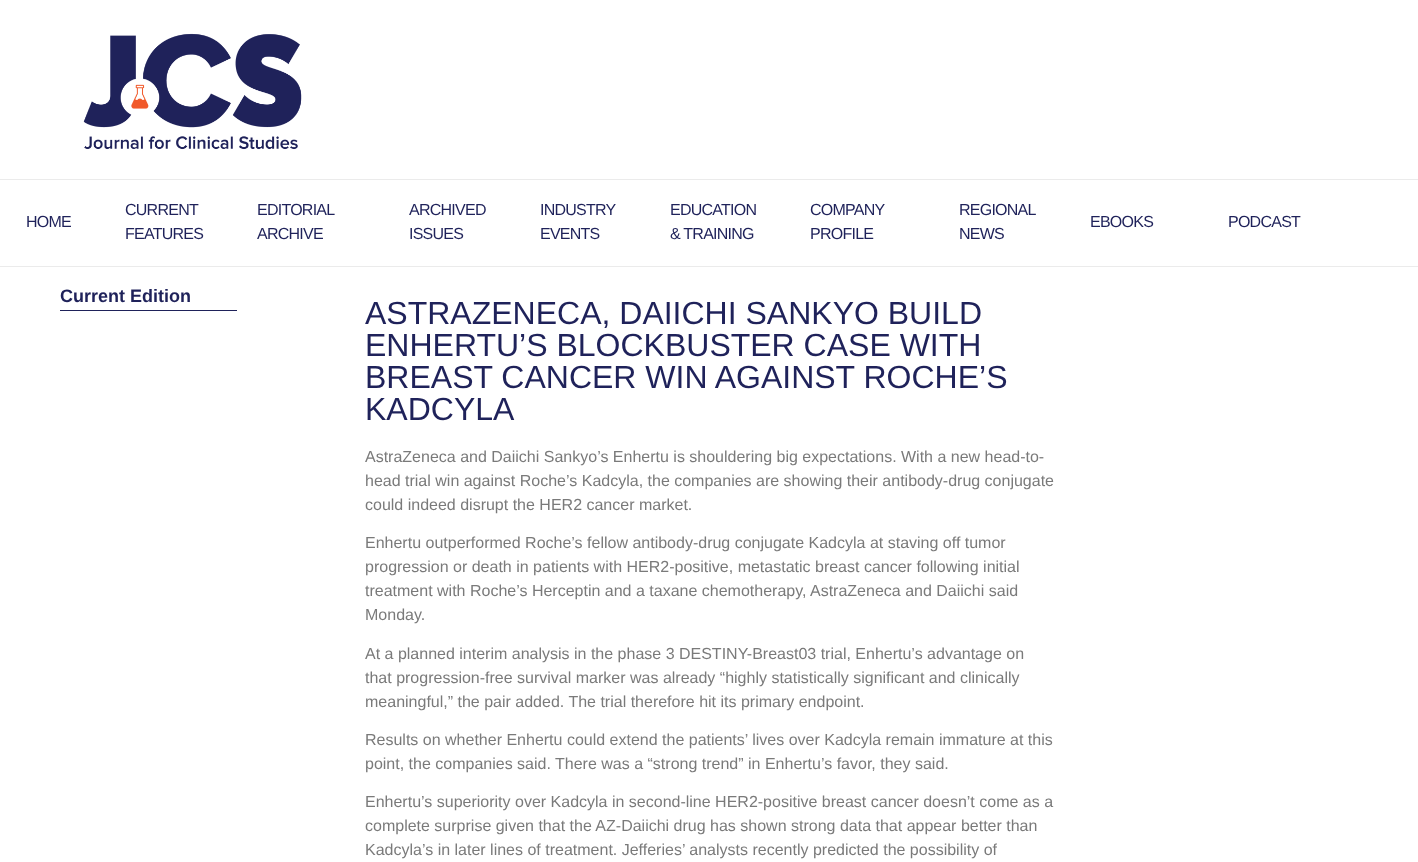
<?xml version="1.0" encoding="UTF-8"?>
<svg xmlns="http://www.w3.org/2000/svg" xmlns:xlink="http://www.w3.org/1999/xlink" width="1418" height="862">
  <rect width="100%" height="100%" fill="#ffffff" />
  <image x="83" y="33" width="219" height="117" xlink:href="image1.png" />
  <rect y="179" width="1418" height="1" fill="#ebebeb" />
  <rect y="266" width="1418" height="1" fill="#ebebeb" />
  <rect x="60" y="310" width="177" height="1" fill="#1f225a" />
  <text x="26" y="227" style="font-family: Liberation Sans; font-size: 16px; letter-spacing: -0.75px; fill: #1f225a">HOME</text>
  <text x="125" y="215" style="font-family: Liberation Sans; font-size: 16px; letter-spacing: -0.75px; fill: #1f225a">CURRENT</text>
  <text x="125" y="239" style="font-family: Liberation Sans; font-size: 16px; letter-spacing: -0.75px; fill: #1f225a">FEATURES</text>
  <text x="257" y="215" style="font-family: Liberation Sans; font-size: 16px; letter-spacing: -0.75px; fill: #1f225a">EDITORIAL</text>
  <text x="257" y="239" style="font-family: Liberation Sans; font-size: 16px; letter-spacing: -0.75px; fill: #1f225a">ARCHIVE</text>
  <text x="409" y="215" style="font-family: Liberation Sans; font-size: 16px; letter-spacing: -0.75px; fill: #1f225a">ARCHIVED</text>
  <text x="409" y="239" style="font-family: Liberation Sans; font-size: 16px; letter-spacing: -0.75px; fill: #1f225a">ISSUES</text>
  <text x="540" y="215" style="font-family: Liberation Sans; font-size: 16px; letter-spacing: -0.75px; fill: #1f225a">INDUSTRY</text>
  <text x="540" y="239" style="font-family: Liberation Sans; font-size: 16px; letter-spacing: -0.75px; fill: #1f225a">EVENTS</text>
  <text x="670" y="215" style="font-family: Liberation Sans; font-size: 16px; letter-spacing: -0.75px; fill: #1f225a">EDUCATION</text>
  <text x="670" y="239" style="font-family: Liberation Sans; font-size: 16px; letter-spacing: -0.75px; fill: #1f225a">&amp; TRAINING</text>
  <text x="810" y="215" style="font-family: Liberation Sans; font-size: 16px; letter-spacing: -0.75px; fill: #1f225a">COMPANY</text>
  <text x="810" y="239" style="font-family: Liberation Sans; font-size: 16px; letter-spacing: -0.75px; fill: #1f225a">PROFILE</text>
  <text x="959" y="215" style="font-family: Liberation Sans; font-size: 16px; letter-spacing: -0.75px; fill: #1f225a">REGIONAL</text>
  <text x="959" y="239" style="font-family: Liberation Sans; font-size: 16px; letter-spacing: -0.75px; fill: #1f225a">NEWS</text>
  <text x="1090" y="227" style="font-family: Liberation Sans; font-size: 16px; letter-spacing: -0.75px; fill: #1f225a">EBOOKS</text>
  <text x="1228" y="227" style="font-family: Liberation Sans; font-size: 16px; letter-spacing: -0.75px; fill: #1f225a">PODCAST</text>
  <text x="60" y="302" style="font-family: Liberation Sans; font-size: 18px; font-weight: bold; fill: #1f225a">Current Edition</text>
  <text x="365" y="324" style="font-family: Liberation Sans; font-size: 32px; fill: #1f225a">ASTRAZENECA, DAIICHI SANKYO BUILD</text>
  <text x="365" y="356" style="font-family: Liberation Sans; font-size: 32px; fill: #1f225a">ENHERTU’S BLOCKBUSTER CASE WITH</text>
  <text x="365" y="388" style="font-family: Liberation Sans; font-size: 32px; fill: #1f225a">BREAST CANCER WIN AGAINST ROCHE’S</text>
  <text x="365" y="420" style="font-family: Liberation Sans; font-size: 32px; fill: #1f225a">KADCYLA</text>
  <text x="365" y="462" style="font-family: Liberation Sans; font-size: 16px; fill: #7a7a7a">AstraZeneca and Daiichi Sankyo’s Enhertu is shouldering big expectations. With a new head-to-</text>
  <text x="365" y="486" style="font-family: Liberation Sans; font-size: 16px; fill: #7a7a7a">head trial win against Roche’s Kadcyla, the companies are showing their antibody-drug conjugate</text>
  <text x="365" y="510" style="font-family: Liberation Sans; font-size: 16px; fill: #7a7a7a">could indeed disrupt the HER2 cancer market.</text>
  <text x="365" y="548" style="font-family: Liberation Sans; font-size: 16px; fill: #7a7a7a">Enhertu outperformed Roche’s fellow antibody-drug conjugate Kadcyla at staving off tumor</text>
  <text x="365" y="572" style="font-family: Liberation Sans; font-size: 16px; fill: #7a7a7a">progression or death in patients with HER2-positive, metastatic breast cancer following initial</text>
  <text x="365" y="596" style="font-family: Liberation Sans; font-size: 16px; fill: #7a7a7a">treatment with Roche’s Herceptin and a taxane chemotherapy, AstraZeneca and Daiichi said</text>
  <text x="365" y="620" style="font-family: Liberation Sans; font-size: 16px; fill: #7a7a7a">Monday.</text>
  <text x="365" y="659" style="font-family: Liberation Sans; font-size: 16px; fill: #7a7a7a">At a planned interim analysis in the phase 3 DESTINY-Breast03 trial, Enhertu’s advantage on</text>
  <text x="365" y="683" style="font-family: Liberation Sans; font-size: 16px; fill: #7a7a7a">that progression-free survival marker was already “highly statistically significant and clinically</text>
  <text x="365" y="707" style="font-family: Liberation Sans; font-size: 16px; fill: #7a7a7a">meaningful,” the pair added. The trial therefore hit its primary endpoint.</text>
  <text x="365" y="745" style="font-family: Liberation Sans; font-size: 16px; fill: #7a7a7a">Results on whether Enhertu could extend the patients’ lives over Kadcyla remain immature at this</text>
  <text x="365" y="769" style="font-family: Liberation Sans; font-size: 16px; fill: #7a7a7a">point, the companies said. There was a “strong trend” in Enhertu’s favor, they said.</text>
  <text x="365" y="807" style="font-family: Liberation Sans; font-size: 16px; fill: #7a7a7a">Enhertu’s superiority over Kadcyla in second-line HER2-positive breast cancer doesn’t come as a</text>
  <text x="365" y="831" style="font-family: Liberation Sans; font-size: 16px; fill: #7a7a7a">complete surprise given that the AZ-Daiichi drug has shown strong data that appear better than</text>
  <text x="365" y="855" style="font-family: Liberation Sans; font-size: 16px; fill: #7a7a7a">Kadcyla’s in later lines of treatment. Jefferies’ analysts recently predicted the possibility of</text>
</svg>
